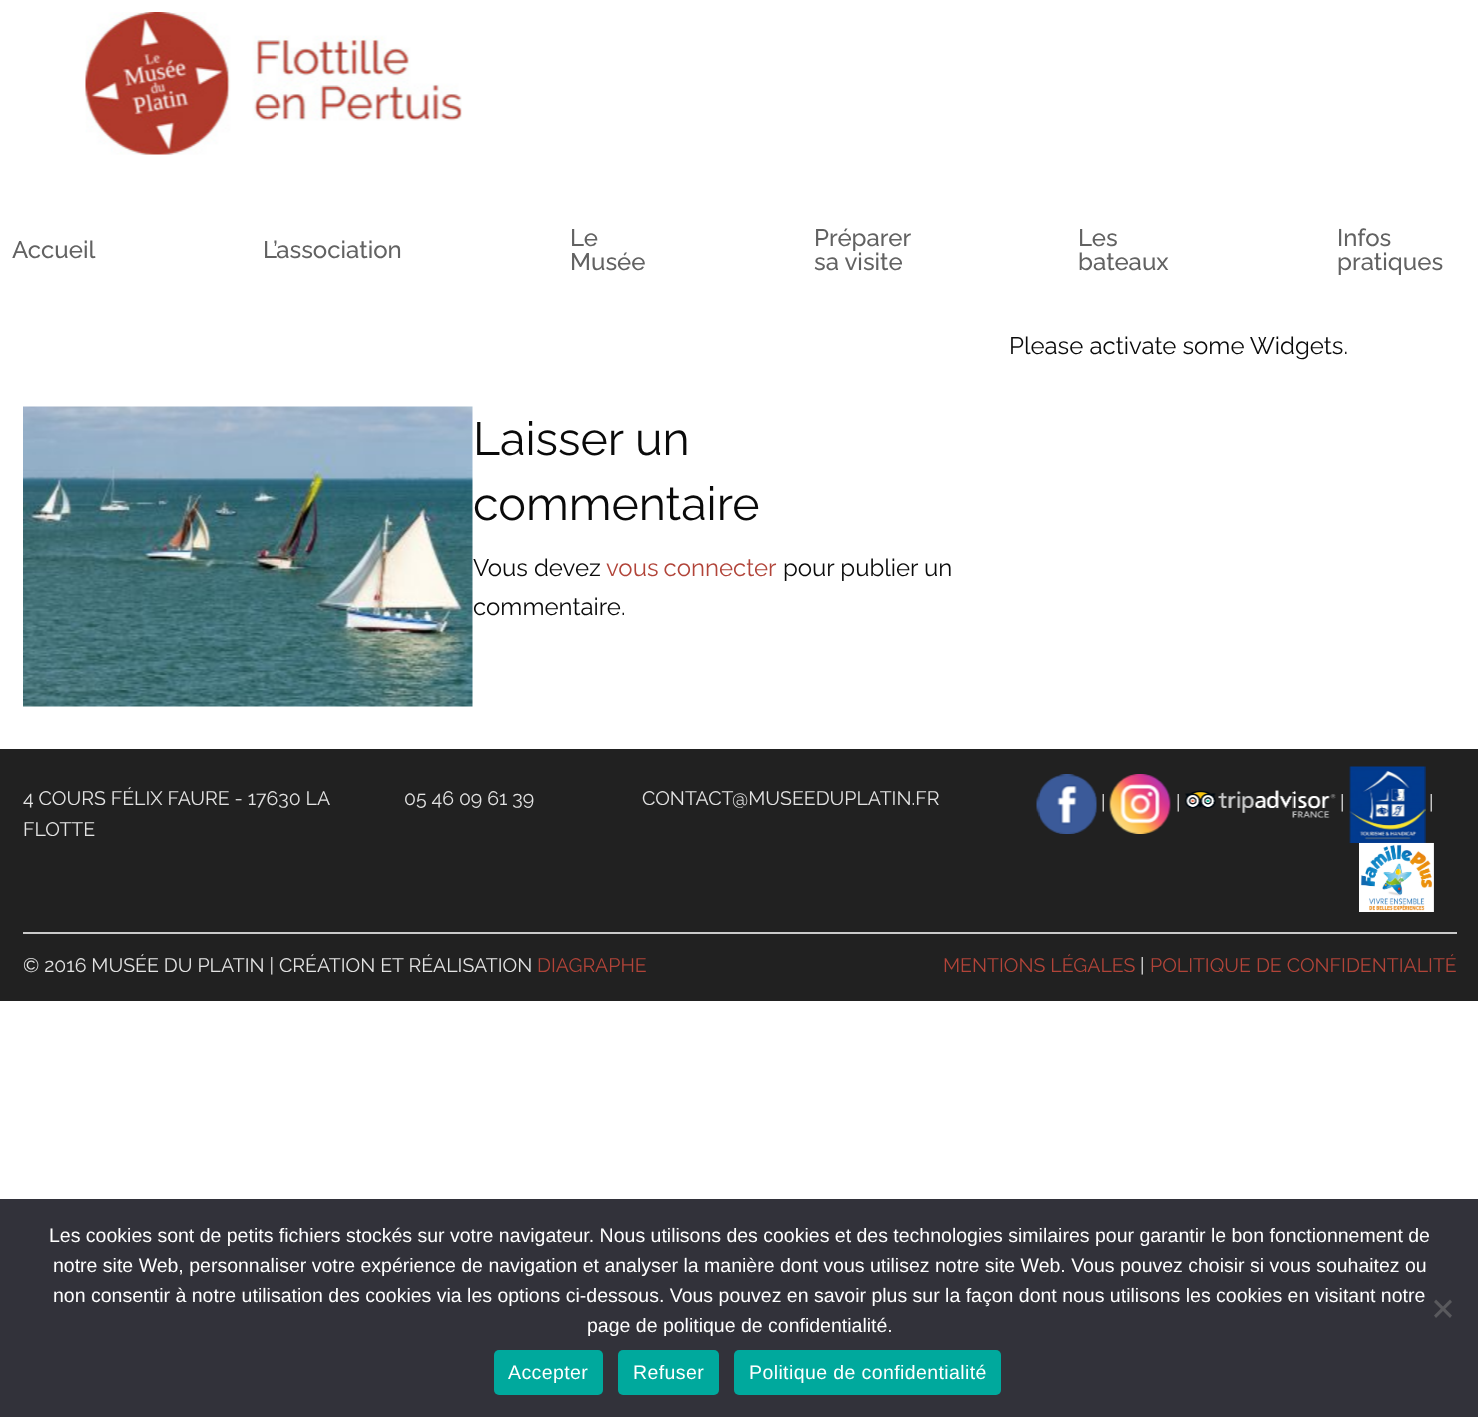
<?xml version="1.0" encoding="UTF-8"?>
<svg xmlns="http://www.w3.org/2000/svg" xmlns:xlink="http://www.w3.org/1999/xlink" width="1478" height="1417">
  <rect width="100%" height="100%" fill="#ffffff" />
  <image x="85" y="12" width="377" height="143" xlink:href="image1.png" />
  <image x="23" y="406" width="450" height="301" xlink:href="image2.png" />
  <rect y="749" width="1478" height="252" fill="#212121" />
  <image x="1036" y="774" width="61" height="60" xlink:href="image3.png" />
  <image x="1109" y="774" width="62" height="60" xlink:href="image4.png" />
  <image x="1184" y="790" width="152" height="28" xlink:href="image5.png" />
  <image x="1349" y="766" width="77" height="77" xlink:href="image6.png" />
  <image x="1359" y="842" width="75" height="70" xlink:href="image7.png" />
  <rect x="23" y="932" width="1434" height="2" fill="#cacaca" />
  <rect y="1199" width="1478" height="218" fill="#32323a" />
  <path d="M 1450 1299.5 l 2 2.5 l -16 16 l -2 -2.5 z" fill="#59595d" />
  <path d="M 1434 1302 l 2 -2.5 l 16 16 l -2 2.5 z" fill="#59595d" />
  <rect x="494" y="1350" width="109" height="45" rx="5" fill="#00a99d" />
  <rect x="618" y="1350" width="101" height="45" rx="5" fill="#00a99d" />
  <rect x="734" y="1350" width="267" height="45" rx="5" fill="#00a99d" />
  <text x="12" y="258" style="font-family: Raleway; font-size: 24px; font-weight: 500; fill: #626262">Accueil</text>
  <text x="263" y="258" style="font-family: Raleway; font-size: 24px; font-weight: 500; fill: #626262">L’association</text>
  <text x="570" y="246" style="font-family: Raleway; font-size: 24px; font-weight: 500; fill: #626262">Le</text>
  <text x="570" y="270" style="font-family: Raleway; font-size: 24px; font-weight: 500; fill: #626262">Musée</text>
  <text x="814" y="246" style="font-family: Raleway; font-size: 24px; font-weight: 500; fill: #626262">Préparer</text>
  <text x="814" y="270" style="font-family: Raleway; font-size: 24px; font-weight: 500; fill: #626262">sa visite</text>
  <text x="1078" y="246" style="font-family: Raleway; font-size: 24px; font-weight: 500; fill: #626262">Les</text>
  <text x="1078" y="270" style="font-family: Raleway; font-size: 24px; font-weight: 500; fill: #626262">bateaux</text>
  <text x="1337" y="246" style="font-family: Raleway; font-size: 24px; font-weight: 500; fill: #626262">Infos</text>
  <text x="1337" y="270" style="font-family: Raleway; font-size: 24px; font-weight: 500; fill: #626262">pratiques</text>
  <text x="1009" y="354" style="font-family: Raleway; font-size: 24px; fill: #0a0a0a">Please activate some Widgets.</text>
  <text x="473" y="455" style="font-family: Raleway; font-size: 46.5px; fill: #0a0a0a">Laisser un</text>
  <text x="473" y="520" style="font-family: Raleway; font-size: 46.5px; fill: #0a0a0a">commentaire</text>
  <text x="473" y="576" style="font-family: Raleway; font-size: 24px; fill: #0a0a0a">Vous devez</text>
  <text x="606" y="576" word-spacing="-1" style="font-family: Raleway; font-size: 24px; fill: #b14439">vous connecter</text>
  <text x="783" y="576" style="font-family: Raleway; font-size: 24px; fill: #0a0a0a">pour publier un</text>
  <text x="473" y="615" style="font-family: Raleway; font-size: 24px; fill: #0a0a0a">commentaire.</text>
  <text x="23" y="805" style="font-family: Raleway; font-size: 19.5px; fill: #e3e3e3">4 COURS FÉLIX FAURE - 17630 LA</text>
  <text x="23" y="836" style="font-family: Raleway; font-size: 19.5px; fill: #e3e3e3">FLOTTE</text>
  <text x="404" y="805" style="font-family: Raleway; font-size: 19.5px; fill: #e3e3e3">05 46 09 61 39</text>
  <text x="642" y="805" style="font-family: Raleway; font-size: 19.5px; fill: #e3e3e3">CONTACT@MUSEEDUPLATIN.FR</text>
  <text x="1101" y="809" style="font-family: Raleway; font-size: 19.5px; fill: #e3e3e3">|</text>
  <text x="1176" y="809" style="font-family: Raleway; font-size: 19.5px; fill: #e3e3e3">|</text>
  <text x="1340" y="809" style="font-family: Raleway; font-size: 19.5px; fill: #e3e3e3">|</text>
  <text x="1429" y="809" style="font-family: Raleway; font-size: 19.5px; fill: #e3e3e3">|</text>
  <text x="23" y="972" style="font-family: Raleway; font-size: 19.5px; fill: #e3e3e3">© 2016 MUSÉE DU PLATIN | CRÉATION ET RÉALISATION</text>
  <text x="537" y="972" style="font-family: Raleway; font-size: 19.5px; fill: #b14439">DIAGRAPHE</text>
  <text x="943" y="972" style="font-family: Raleway; font-size: 19.5px; fill: #b14439">MENTIONS LÉGALES</text>
  <text x="1140" y="972" style="font-family: Raleway; font-size: 19.5px; fill: #e3e3e3">|</text>
  <text x="1150" y="972" style="font-family: Raleway; font-size: 19.5px; fill: #b14439">POLITIQUE DE CONFIDENTIALITÉ</text>
  <text x="49" y="1242" style="font-family: Liberation Sans; font-size: 19.5px; fill: #ffffff">Les cookies sont de petits fichiers stockés sur votre navigateur. Nous utilisons des cookies et des technologies similaires pour garantir le bon fonctionnement de</text>
  <text x="53" y="1272" style="font-family: Liberation Sans; font-size: 19.5px; fill: #ffffff">notre site Web, personnaliser votre expérience de navigation et analyser la manière dont vous utilisez notre site Web. Vous pouvez choisir si vous souhaitez ou</text>
  <text x="53" y="1302" style="font-family: Liberation Sans; font-size: 19.5px; fill: #ffffff">non consentir à notre utilisation des cookies via les options ci-dessous. Vous pouvez en savoir plus sur la façon dont nous utilisons les cookies en visitant notre</text>
  <text x="587" y="1332" style="font-family: Liberation Sans; font-size: 19.5px; fill: #ffffff">page de politique de confidentialité.</text>
  <text x="508" y="1379" style="font-family: Liberation Sans; font-size: 19.5px; letter-spacing: 0.4px; fill: #ffffff">Accepter</text>
  <text x="633" y="1379" style="font-family: Liberation Sans; font-size: 19.5px; letter-spacing: 0.4px; fill: #ffffff">Refuser</text>
  <text x="749" y="1379" style="font-family: Liberation Sans; font-size: 19.5px; letter-spacing: 0.4px; fill: #ffffff">Politique de confidentialité</text>
</svg>
